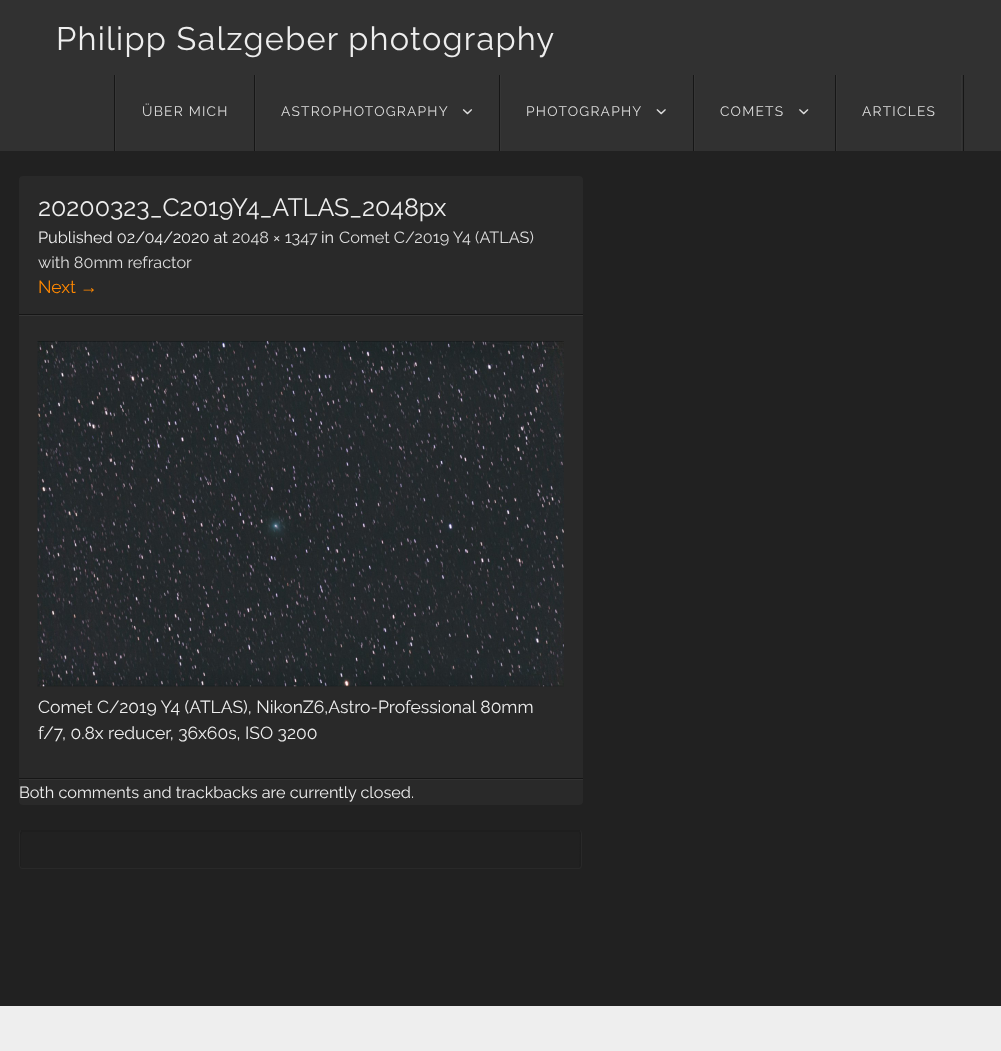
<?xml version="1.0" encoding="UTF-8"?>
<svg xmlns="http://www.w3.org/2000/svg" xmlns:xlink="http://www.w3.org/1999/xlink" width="1001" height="1051">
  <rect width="100%" height="100%" fill="#212121" />
  <rect width="1001" height="151" fill="#313131" />
  <rect x="963" y="75" width="1" height="76" fill="#161616" />
  <rect x="114" y="75" width="1" height="76" fill="#161616" />
  <rect x="115" y="75" width="1" height="76" fill="#363636" />
  <rect x="254" y="75" width="1" height="76" fill="#161616" />
  <rect x="255" y="75" width="1" height="76" fill="#363636" />
  <image x="462" y="109" width="11" height="6" xlink:href="image1.png" />
  <rect x="499" y="75" width="1" height="76" fill="#161616" />
  <rect x="500" y="75" width="1" height="76" fill="#363636" />
  <image x="656" y="109" width="10" height="6" xlink:href="image2.png" />
  <rect x="693" y="75" width="1" height="76" fill="#161616" />
  <rect x="694" y="75" width="1" height="76" fill="#363636" />
  <image x="799" y="109" width="10" height="6" xlink:href="image3.png" />
  <rect x="835" y="75" width="1" height="76" fill="#161616" />
  <rect x="961" y="75" width="1" height="76" fill="#363636" />
  <rect x="836" y="75" width="1" height="76" fill="#363636" />
  <rect x="19" y="176" width="564" height="629" rx="4" fill="#292929" />
  <rect x="19" y="314" width="564" height="1" fill="#161616" />
  <rect x="19" y="315" width="564" height="1" fill="#363636" />
  <rect x="19" y="778" width="564" height="1" fill="#161616" />
  <image x="37" y="341" width="527" height="346" xlink:href="image4.png" />
  <rect x="19" y="779" width="564" height="1" fill="#333333" />
  <path d="M 22 832 h 557 l 1 3 c 0 2 0 31 -1 32 c 2 0 2 -1 2 -2 v -31 c 0 -2 -1 -4 -2 -4 h -557 c -1 0 -2 2 -2 4 v 31 c 0 1 1 2 1 2 c 0 -1 0 -30 0 -32 z" fill="#1e1e1e" />
  <path d="M 22 830 h 557 c 2 0 3 2 3 4 v 31 c 0 2 -1 4 -3 4 h -557 c -2 0 -3 -2 -3 -4 v -31 c 0 -2 1 -4 3 -4 z m 0 0 h 557 c 1 0 2 2 2 4 v 31 c 0 1 -1 3 -2 3 h -557 c -1 0 -2 -2 -2 -3 v -31 c 0 -2 1 -4 2 -4 z" fill="#292929" fill-rule="evenodd" />
  <rect y="1006" width="1001" height="45" fill="#eeeeee" />
  <text x="56" y="50" style="font-family: Raleway; font-size: 32.5px; font-weight: 100; letter-spacing: 1.25px; fill: #eeeeee">Philipp Salzgeber photography</text>
  <text x="142" y="116" style="font-family: Raleway; font-size: 13.75px; font-weight: 100; letter-spacing: 1.25px; fill: #dddddd">ÜBER MICH</text>
  <text x="281" y="116" style="font-family: Raleway; font-size: 13.75px; font-weight: 100; letter-spacing: 1.25px; fill: #dddddd">ASTROPHOTOGRAPHY</text>
  <text x="526" y="116" style="font-family: Raleway; font-size: 13.75px; font-weight: 100; letter-spacing: 1.25px; fill: #dddddd">PHOTOGRAPHY</text>
  <text x="720" y="116" style="font-family: Raleway; font-size: 13.75px; font-weight: 100; letter-spacing: 1.25px; fill: #dddddd">COMETS</text>
  <text x="862" y="116" style="font-family: Raleway; font-size: 13.75px; font-weight: 100; letter-spacing: 1.25px; fill: #dddddd">ARTICLES</text>
  <text x="38" y="216" style="font-family: Raleway; font-size: 25px; font-weight: 100; fill: #eeeeee">20200323_C2019Y4_ATLAS_2048px</text>
  <text x="38" y="243" style="font-family: Raleway; font-size: 16.25px; font-weight: 100; fill: #eeeeee">Published 02/04/2020 at</text>
  <text x="232" y="243" style="font-family: Raleway; font-size: 16.25px; font-weight: 100; fill: #dddddd">2048 × 1347</text>
  <text x="321" y="243" style="font-family: Raleway; font-size: 16.25px; font-weight: 100; fill: #eeeeee">in</text>
  <text x="339" y="243" style="font-family: Raleway; font-size: 16.25px; font-weight: 100; fill: #dddddd">Comet C/2019 Y4 (ATLAS)</text>
  <text x="38" y="268" style="font-family: Raleway; font-size: 16.25px; font-weight: 100; fill: #dddddd">with 80mm refractor</text>
  <text x="38" y="293" style="font-family: Raleway; font-size: 17.5px; font-weight: 100; fill: #ff8800">Next</text>
  <text x="80" y="293" style="font-family: Liberation Sans; font-size: 17.5px; fill: #ff8800">→</text>
  <text x="38" y="713" style="font-family: Raleway; font-size: 17.5px; font-weight: 100; fill: #eeeeee">Comet C/2019 Y4 (ATLAS), NikonZ6,Astro-Professional 80mm</text>
  <text x="38" y="739" style="font-family: Raleway; font-size: 17.5px; font-weight: 100; fill: #eeeeee">f/7, 0.8x reducer, 36x60s, ISO 3200</text>
  <text x="19" y="798" style="font-family: Raleway; font-size: 16.25px; font-weight: 100; fill: #eeeeee">Both comments and trackbacks are currently closed.</text>
</svg>
